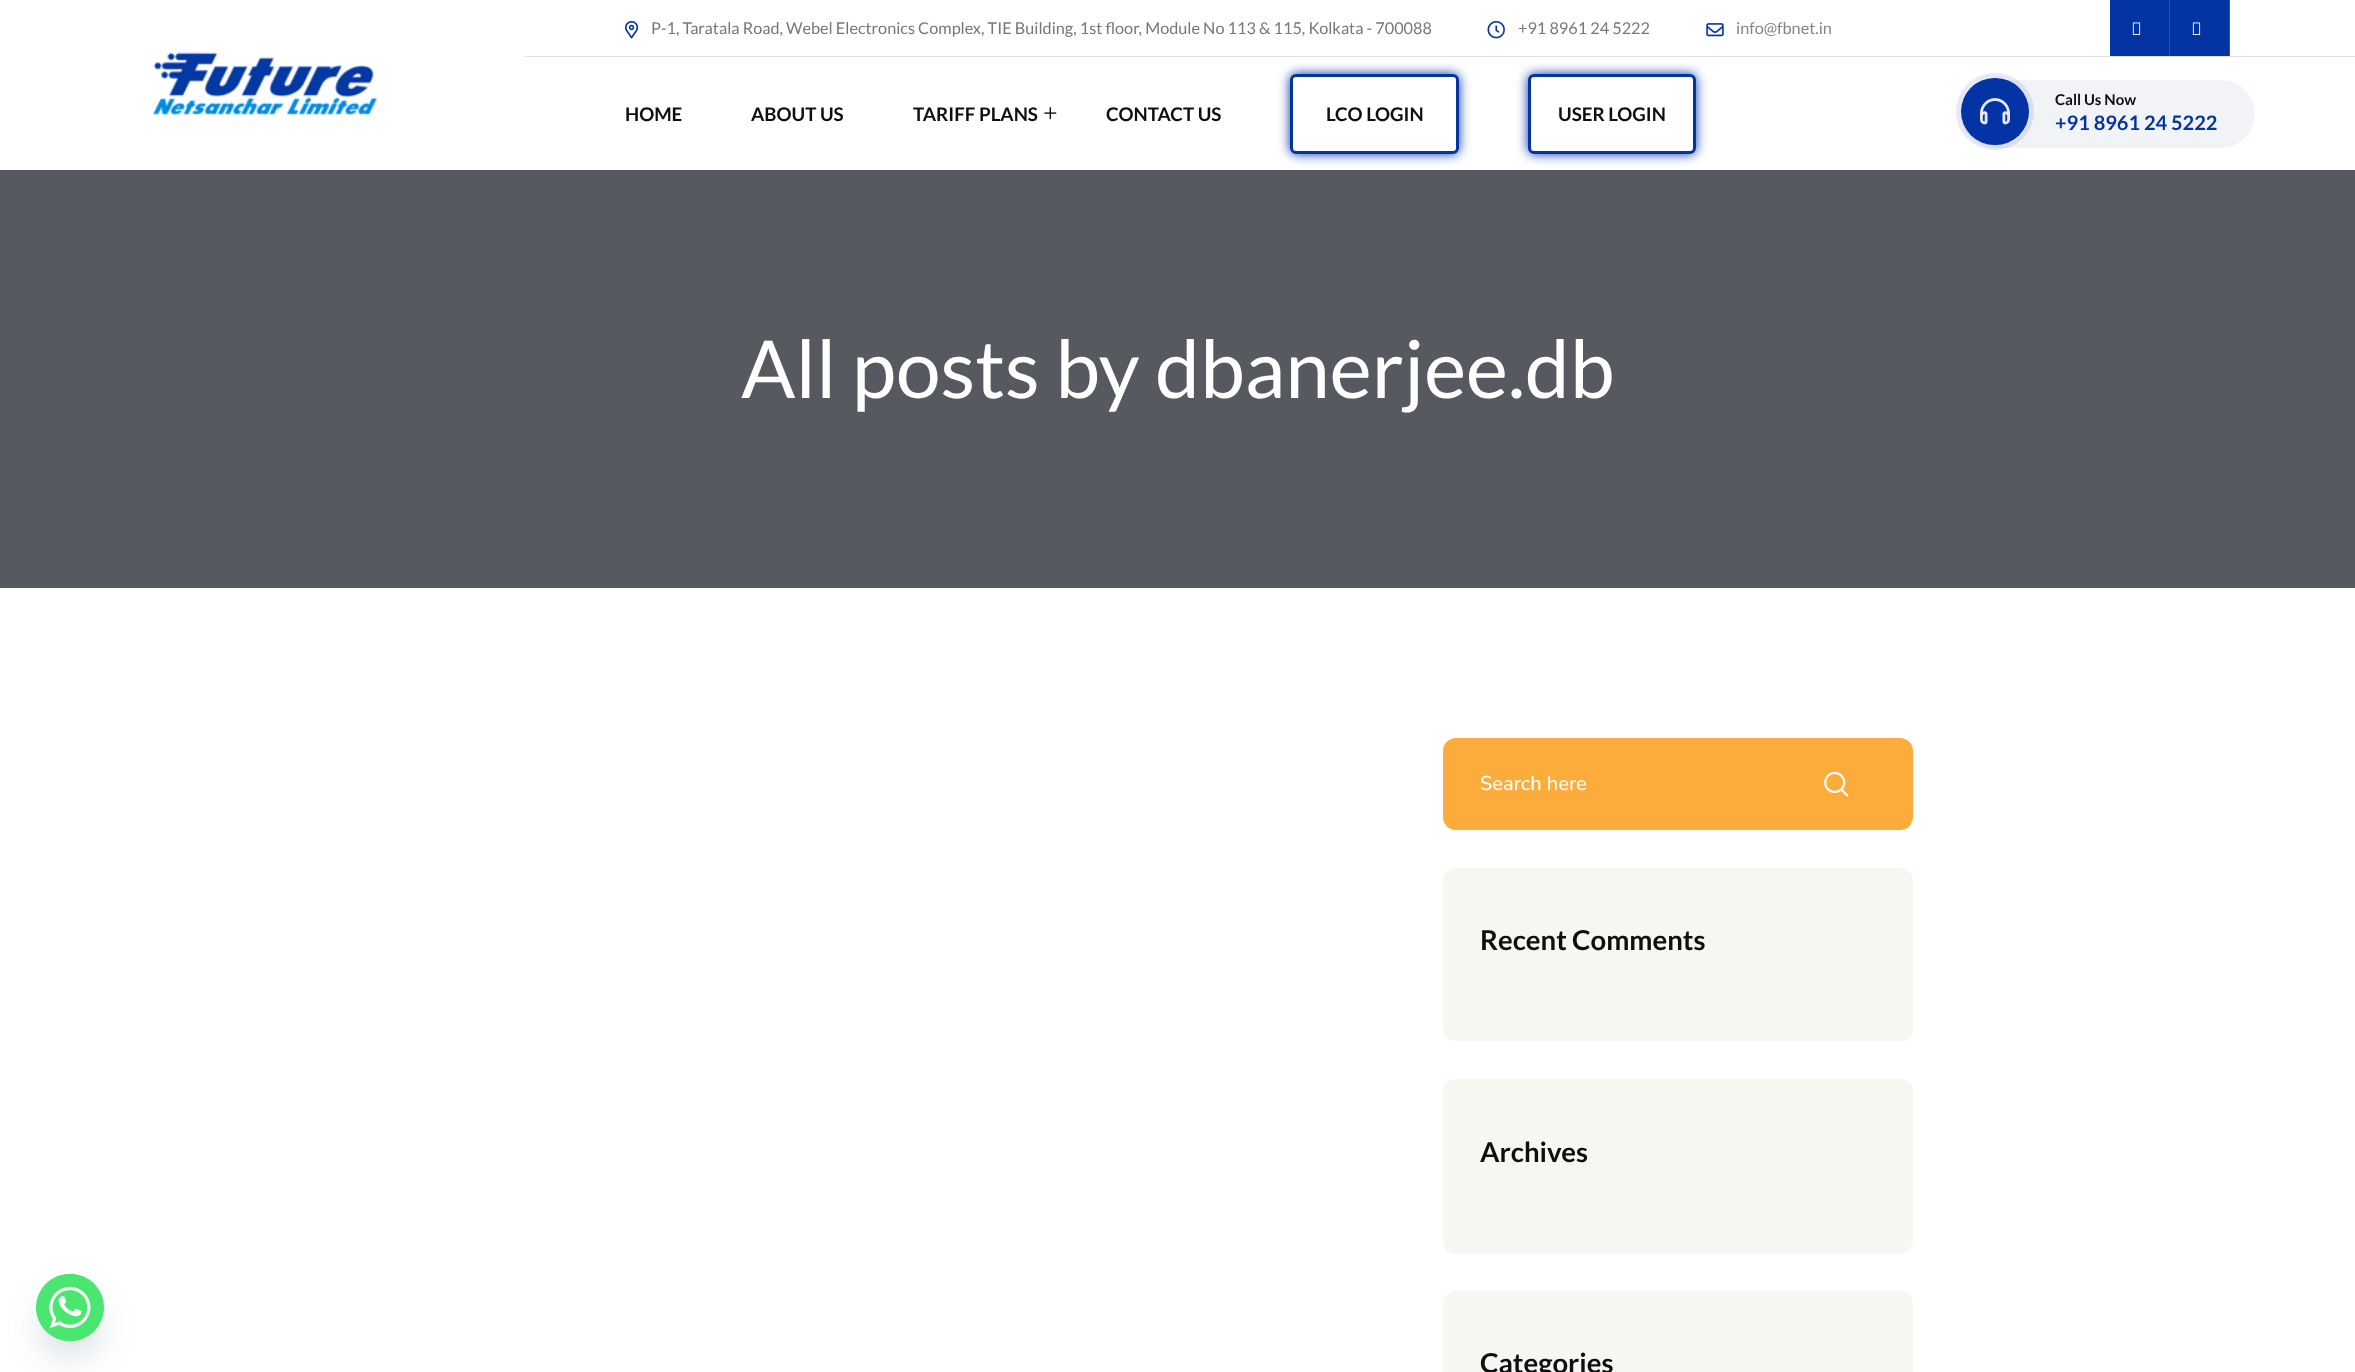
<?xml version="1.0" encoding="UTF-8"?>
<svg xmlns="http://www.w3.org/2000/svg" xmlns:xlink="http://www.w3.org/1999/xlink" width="2355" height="1372">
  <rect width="100%" height="100%" fill="#ffffff" />
  <rect x="36" y="1294" width="68" height="67" rx="33.5" fill="#49687e" fill-opacity="0.16" filter="blur(15px)" />
  <rect x="36" y="1274" width="68" height="67" rx="33.5" fill="#49e670" />
  <image x="36" y="1274" width="68" height="67" xlink:href="image1.png" />
  <rect x="525" y="56" width="1830" height="1" fill="#e1e1e1" />
  <image x="625" y="20" width="14" height="19" xlink:href="image2.png" />
  <image x="1487" y="20" width="18" height="19" xlink:href="image3.png" />
  <image x="1706" y="23" width="18" height="14" xlink:href="image4.png" />
  <rect x="2110" width="119" height="56" fill="#0434a4" />
  <rect x="2169" width="1" height="56" fill="#2c54b3" />
  <image x="2132" y="22" width="9" height="13" xlink:href="image5.png" />
  <rect x="2229" width="1" height="56" fill="#2c54b3" />
  <image x="2192" y="22" width="9" height="13" xlink:href="image5.png" />
  <image x="152" y="52" width="226" height="64" xlink:href="image6.png" />
  <image x="1044" y="107" width="13" height="13" xlink:href="image7.png" />
  <rect y="170" width="2355" height="418" fill="#56595f" />
  <rect x="1290" y="74" width="169" height="80" rx="6" fill="#0434a4" filter="blur(6px)" />
  <rect x="1291.5" y="75.5" width="166" height="77" rx="4.5" fill="#ffffff" stroke="#0434a4" stroke-width="3" />
  <rect x="1528" y="74" width="168" height="80" rx="6" fill="#0434a4" filter="blur(6px)" />
  <rect x="1529.5" y="75.5" width="165" height="77" rx="4.5" fill="#ffffff" stroke="#0434a4" stroke-width="3" />
  <rect x="1961" y="80" width="294" height="68" rx="34" fill="#f2f3f7" />
  <rect x="1961" y="78" width="68" height="67" rx="33.5" fill="#0434a4" />
  <image x="1980" y="98" width="30" height="27" xlink:href="image8.png" />
  <rect x="1956" y="73" width="78" height="77" rx="38.5" fill="#0434a4" fill-opacity="0.1" />
  <rect x="1443" y="738" width="470" height="92" rx="13" fill="#fcac3a" />
  <image x="1824" y="771" width="25" height="26" xlink:href="image9.png" />
  <rect x="1443" y="868" width="470" height="173" rx="13" fill="#f8f6f1" />
  <rect x="1443" y="1079" width="470" height="175" rx="13" fill="#f8f6f1" />
  <rect x="1443" y="1291" width="470" height="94" rx="13" fill="#f8f6f1" />
  <text x="651" y="34" style="font-family: Lato; font-size: 16.25px; fill: #777777">P-1, Taratala Road, Webel Electronics Complex, TIE Building, 1st floor, Module No 113 &amp; 115, Kolkata - 700088</text>
  <text x="1518" y="34" style="font-family: Lato; font-size: 16.25px; fill: #777777">+91 8961 24 5222</text>
  <text x="1736" y="34" style="font-family: Lato; font-size: 16.25px; fill: #848484">info@fbnet.in</text>
  <text x="625" y="121" style="font-family: Lato; font-size: 18.75px; font-weight: bold; fill: #0d0f10">HOME</text>
  <text x="751" y="121" style="font-family: Lato; font-size: 18.75px; font-weight: bold; fill: #0d0f10">ABOUT US</text>
  <text x="913" y="121" style="font-family: Lato; font-size: 18.75px; font-weight: bold; fill: #0d0f10">TARIFF PLANS</text>
  <text x="1106" y="121" style="font-family: Lato; font-size: 18.75px; font-weight: bold; fill: #0d0f10">CONTACT US</text>
  <text x="1326" y="121" style="font-family: Lato; font-size: 18.75px; font-weight: bold; fill: #0d0f10">LCO LOGIN</text>
  <text x="1558" y="121" style="font-family: Lato; font-size: 18.75px; font-weight: bold; fill: #0d0f10">USER LOGIN</text>
  <text x="2055" y="105" style="font-family: Lato; font-size: 15px; font-weight: bold; fill: #0d0f10">Call Us Now</text>
  <text x="2055" y="130" style="font-family: Lato; font-size: 20px; font-weight: bold; fill: #0434a4">+91 8961 24 5222</text>
  <text x="741" y="398" style="font-family: Lato; font-size: 80px; fill: #ffffff">All posts by dbanerjee.db</text>
  <text x="1480" y="790" style="font-family: Nunito; font-size: 20px; font-weight: 500; fill: #ffffff">Search here</text>
  <text x="1480" y="950" style="font-family: Lato; font-size: 27.5px; font-weight: bold; fill: #0d0f10">Recent Comments</text>
  <text x="1480" y="1162" style="font-family: Lato; font-size: 27.5px; font-weight: bold; fill: #0d0f10">Archives</text>
  <text x="1480" y="1373" style="font-family: Lato; font-size: 27.5px; font-weight: bold; fill: #0d0f10">Categories</text>
</svg>
